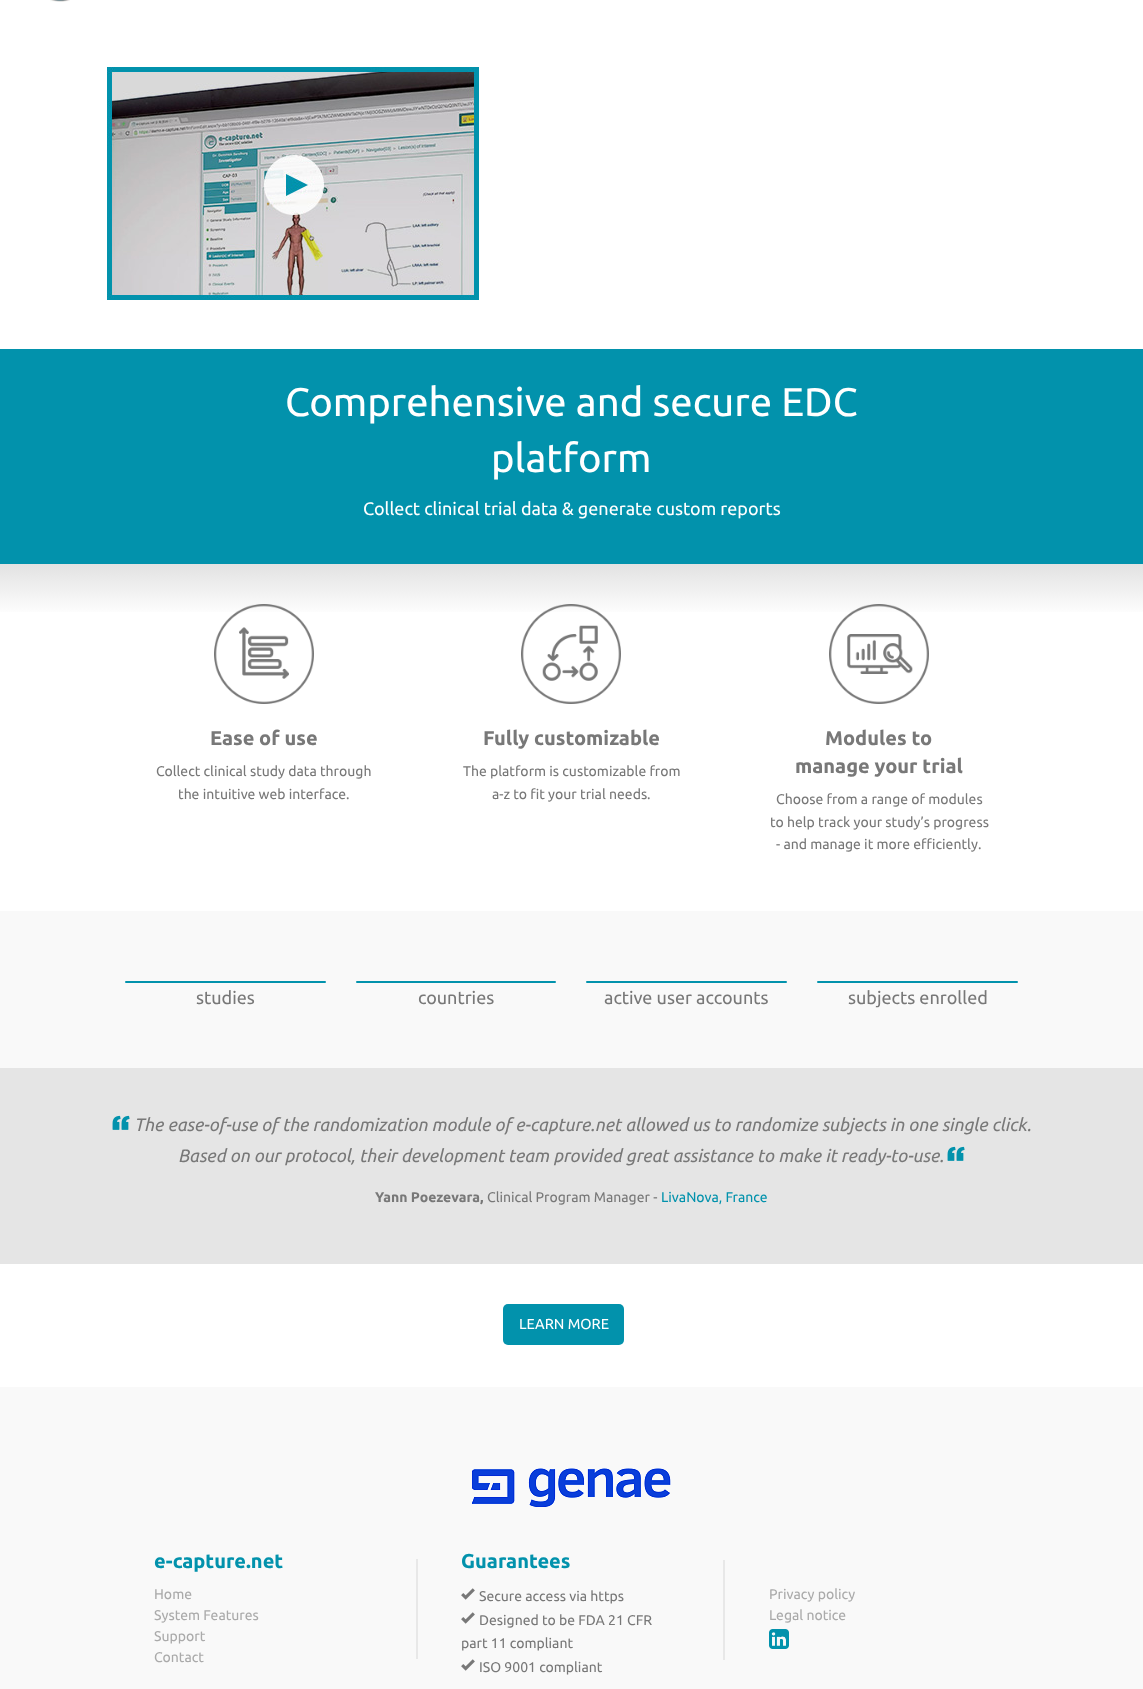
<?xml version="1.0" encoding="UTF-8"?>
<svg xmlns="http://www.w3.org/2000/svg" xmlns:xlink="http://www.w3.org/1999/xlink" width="1143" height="1689">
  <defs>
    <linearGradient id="g1" gradientUnits="userSpaceOnUse" x1="572" y1="564" x2="572" y2="911"><stop offset="0" stop-color="#e2e2e2" /><stop offset="0.15" stop-color="#ffffff" /></linearGradient>
  </defs>
  <rect width="100%" height="100%" fill="#ffffff" />
  <image x="50" y="0" width="20" height="2" xlink:href="image1.png" />
  <image x="107" y="67" width="372" height="233" xlink:href="image2.png" />
  <rect y="349" width="1143" height="215" fill="#0292ac" />
  <rect y="564" width="1143" height="48" fill="url(#g1)" />
  <image x="214" y="604" width="100" height="100" xlink:href="image3.png" />
  <image x="521" y="604" width="100" height="100" xlink:href="image4.png" />
  <image x="829" y="604" width="100" height="100" xlink:href="image5.png" />
  <rect y="911" width="1143" height="157" fill="#f9f9f9" />
  <rect x="125" y="981" width="201" height="2" rx="1" fill="#0292ac" />
  <rect x="356" y="981" width="200" height="2" rx="1" fill="#0292ac" />
  <rect x="586" y="981" width="201" height="2" rx="1" fill="#0292ac" />
  <rect x="817" y="981" width="201" height="2" rx="1" fill="#0292ac" />
  <rect y="1068" width="1143" height="196" fill="#e5e5e5" />
  <image x="112" y="1115" width="18" height="15" xlink:href="image6.png" />
  <image x="947" y="1146" width="18" height="15" xlink:href="image6.png" />
  <rect x="503" y="1304" width="121" height="41" rx="5" fill="#0292ac" />
  <rect y="1387" width="1143" height="302" fill="#f9f9f9" />
  <image x="472" y="1468" width="199" height="39" xlink:href="image7.png" />
  <rect x="416" y="1559" width="2" height="100" fill="#e8e8e8" />
  <image x="461" y="1588" width="14" height="12" xlink:href="image8.png" />
  <image x="461" y="1612" width="14" height="12" xlink:href="image8.png" />
  <image x="461" y="1659" width="14" height="12" xlink:href="image8.png" />
  <rect x="723" y="1560" width="2" height="100" fill="#e8e8e8" />
  <image x="769" y="1629" width="20" height="20" xlink:href="image9.png" />
  <text x="285" y="416" style="font-family: Ubuntu; font-size: 40px; fill: #ffffff">Comprehensive and secure EDC</text>
  <text x="491" y="472" style="font-family: Ubuntu; font-size: 40px; fill: #ffffff">platform</text>
  <text x="363" y="515" style="font-family: Ubuntu; font-size: 18px; fill: #ffffff">Collect clinical trial data &amp; generate custom reports</text>
  <text x="210" y="745" style="font-family: Ubuntu; font-size: 20px; font-weight: bold; fill: #787878">Ease of use</text>
  <text x="156" y="776" style="font-family: Ubuntu; font-size: 14px; fill: #787878">Collect clinical study data through</text>
  <text x="178" y="799" style="font-family: Ubuntu; font-size: 14px; fill: #787878">the intuitive web interface.</text>
  <text x="483" y="745" style="font-family: Ubuntu; font-size: 20px; font-weight: bold; fill: #787878">Fully customizable</text>
  <text x="463" y="776" style="font-family: Ubuntu; font-size: 14px; fill: #787878">The platform is customizable from</text>
  <text x="492" y="799" style="font-family: Ubuntu; font-size: 14px; fill: #787878">a-z to fit your trial needs.</text>
  <text x="825" y="745" style="font-family: Ubuntu; font-size: 20px; font-weight: bold; fill: #787878">Modules to</text>
  <text x="795" y="773" style="font-family: Ubuntu; font-size: 20px; font-weight: bold; fill: #787878">manage your trial</text>
  <text x="776" y="804" style="font-family: Ubuntu; font-size: 14px; fill: #787878">Choose from a range of modules</text>
  <text x="770" y="827" style="font-family: Ubuntu; font-size: 14px; fill: #787878">to help track your study’s progress</text>
  <text x="776" y="849" style="font-family: Ubuntu; font-size: 14px; fill: #787878">- and manage it more efficiently.</text>
  <text x="196" y="1004" style="font-family: Ubuntu; font-size: 18px; fill: #787878">studies</text>
  <text x="418" y="1004" style="font-family: Ubuntu; font-size: 18px; fill: #787878">countries</text>
  <text x="604" y="1004" style="font-family: Ubuntu; font-size: 18px; fill: #787878">active user accounts</text>
  <text x="848" y="1004" style="font-family: Ubuntu; font-size: 18px; fill: #787878">subjects enrolled</text>
  <text x="134" y="1131" style="font-family: Ubuntu; font-size: 18px; font-style: italic; fill: #787878">The ease-of-use of the randomization module of e-capture.net allowed us to randomize subjects in one single click.</text>
  <text x="178" y="1162" style="font-family: Ubuntu; font-size: 18px; font-style: italic; fill: #787878">Based on our protocol, their development team provided great assistance to make it ready-to-use.</text>
  <text x="375" y="1202" style="font-family: Ubuntu; font-size: 14px; font-weight: bold; fill: #787878">Yann Poezevara,</text>
  <text x="487" y="1202" style="font-family: Ubuntu; font-size: 14px; fill: #787878">Clinical Program Manager -</text>
  <text x="661" y="1202" style="font-family: Ubuntu; font-size: 14px; fill: #0292ac">LivaNova, France</text>
  <text x="519" y="1329" style="font-family: Ubuntu; font-size: 14.5px; fill: #ffffff">LEARN MORE</text>
  <text x="154" y="1568" style="font-family: Ubuntu; font-size: 20px; font-weight: bold; fill: #0292ac">e-capture.net</text>
  <text x="154" y="1599" style="font-family: Ubuntu; font-size: 14px; fill: #aaaaaa">Home</text>
  <text x="154" y="1620" style="font-family: Ubuntu; font-size: 14px; fill: #aaaaaa">System Features</text>
  <text x="154" y="1641" style="font-family: Ubuntu; font-size: 14px; fill: #aaaaaa">Support</text>
  <text x="154" y="1662" style="font-family: Ubuntu; font-size: 14px; fill: #aaaaaa">Contact</text>
  <text x="461" y="1568" style="font-family: Ubuntu; font-size: 20px; font-weight: bold; fill: #0292ac">Guarantees</text>
  <text x="479" y="1601" style="font-family: Ubuntu; font-size: 14px; fill: #787878">Secure access via https</text>
  <text x="479" y="1625" style="font-family: Ubuntu; font-size: 14px; fill: #787878">Designed to be FDA 21 CFR</text>
  <text x="461" y="1648" style="font-family: Ubuntu; font-size: 14px; fill: #787878">part 11 compliant</text>
  <text x="479" y="1672" style="font-family: Ubuntu; font-size: 14px; fill: #787878">ISO 9001 compliant</text>
  <text x="769" y="1599" style="font-family: Ubuntu; font-size: 14px; fill: #aaaaaa">Privacy policy</text>
  <text x="769" y="1620" style="font-family: Ubuntu; font-size: 14px; fill: #aaaaaa">Legal notice</text>
</svg>
